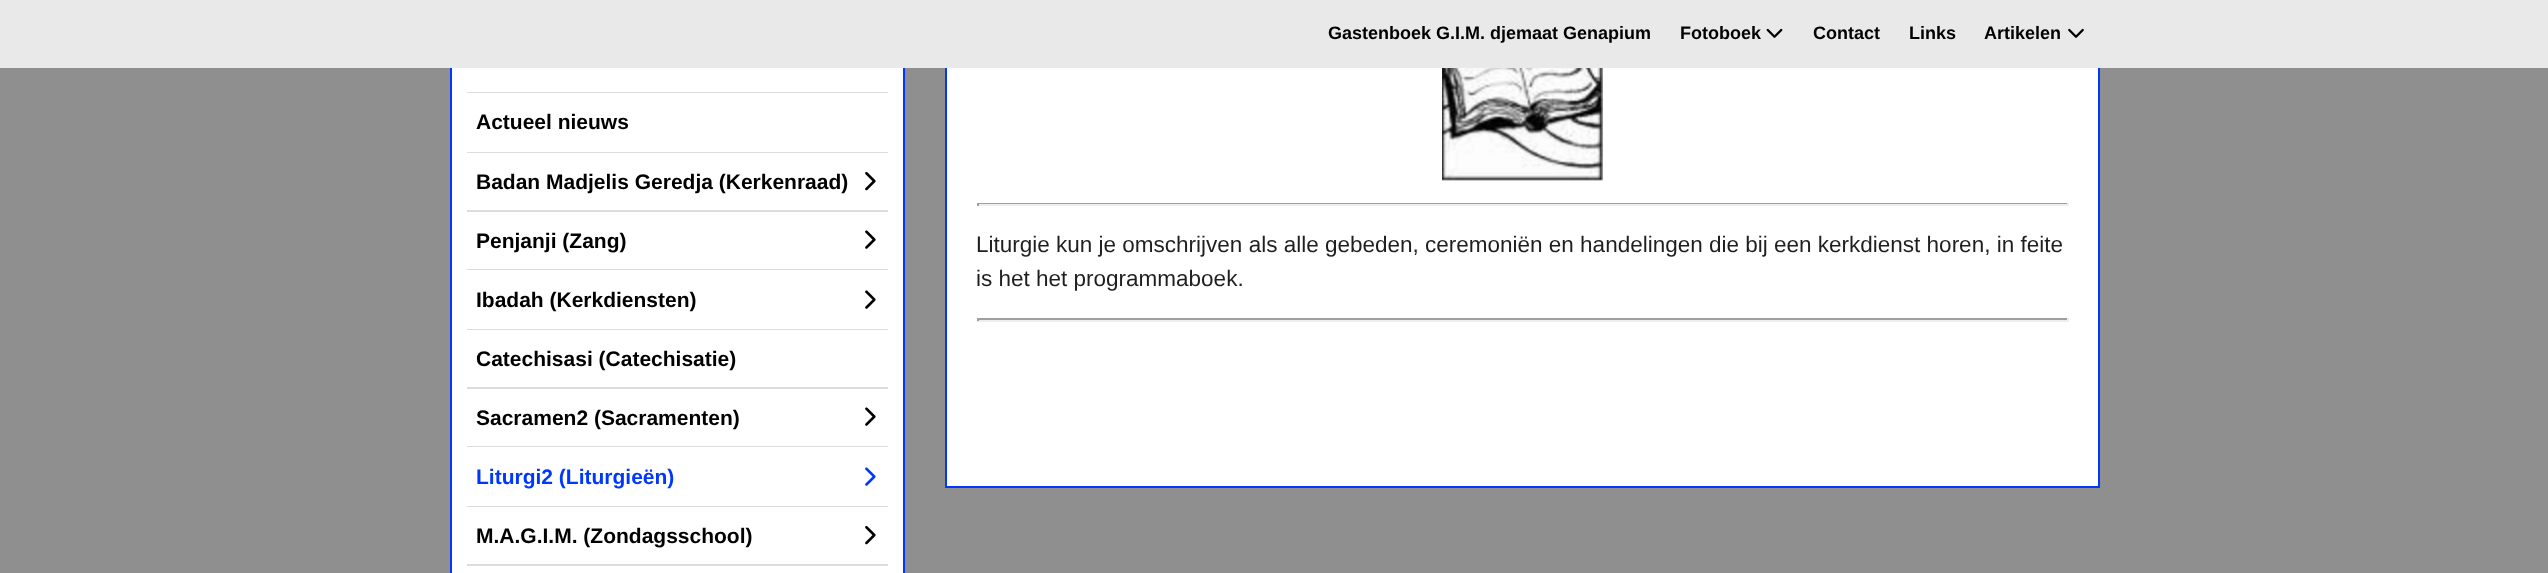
<?xml version="1.0" encoding="UTF-8"?>
<svg xmlns="http://www.w3.org/2000/svg" xmlns:xlink="http://www.w3.org/1999/xlink" width="2548" height="573">
  <rect width="100%" height="100%" fill="#8f8f8f" />
  <rect x="452" y="68" width="451" height="505" fill="#ffffff" />
  <rect x="451" y="-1" width="453" height="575" fill="none" stroke="#0037fd" stroke-width="2" />
  <rect x="947" y="68" width="1151" height="418" fill="#ffffff" />
  <rect x="946" y="-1" width="1153" height="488" fill="none" stroke="#0037fd" stroke-width="2" />
  <rect width="2548" height="68" fill="#e9e9e9" />
  <image x="1766" y="28" width="17" height="10" xlink:href="image1.png" />
  <image x="2068" y="28" width="16" height="10" xlink:href="image2.png" />
  <rect x="467" y="92" width="421" height="1" fill="#dcdcdc" />
  <rect x="467" y="152" width="421" height="1" fill="#dcdcdc" />
  <rect x="467" y="210" width="421" height="2" fill="#dcdcdc" />
  <image x="865" y="171" width="11" height="20" xlink:href="image3.png" />
  <rect x="467" y="269" width="421" height="1" fill="#dcdcdc" />
  <image x="865" y="230" width="11" height="19" xlink:href="image4.png" />
  <rect x="467" y="329" width="421" height="1" fill="#dcdcdc" />
  <image x="865" y="290" width="11" height="19" xlink:href="image4.png" />
  <rect x="467" y="387" width="421" height="2" fill="#dcdcdc" />
  <rect x="467" y="446" width="421" height="1" fill="#dcdcdc" />
  <image x="865" y="407" width="11" height="19" xlink:href="image4.png" />
  <rect x="467" y="506" width="421" height="1" fill="#dcdcdc" />
  <image x="865" y="467" width="11" height="19" xlink:href="image5.png" />
  <rect x="467" y="564" width="421" height="2" fill="#dcdcdc" />
  <image x="865" y="525" width="11" height="20" xlink:href="image3.png" />
  <image x="1442" y="68" width="161" height="113" xlink:href="image6.png" />
  <rect x="977" y="203" width="1092" height="1" fill="#9f9f9f" />
  <rect x="2067" y="203" width="2" height="3" fill="#eeeeee" />
  <rect x="977" y="204" width="1092" height="2" fill="#eeeeee" />
  <rect x="977" y="203" width="2" height="3" fill="#9f9f9f" />
  <rect x="977" y="318" width="1092" height="2" fill="#9f9f9f" />
  <rect x="2067" y="318" width="2" height="3" fill="#eeeeee" />
  <rect x="977" y="320" width="1092" height="2" fill="#eeeeee" />
  <rect x="977" y="318" width="2" height="3" fill="#9f9f9f" />
  <text x="1328" y="39" style="font-family: Liberation Sans; font-size: 18px; font-weight: bold; fill: #000000">Gastenboek G.I.M. djemaat Genapium</text>
  <text x="1680" y="39" style="font-family: Liberation Sans; font-size: 18px; font-weight: bold; fill: #000000">Fotoboek</text>
  <text x="1813" y="39" style="font-family: Liberation Sans; font-size: 18px; font-weight: bold; fill: #000000">Contact</text>
  <text x="1909" y="39" style="font-family: Liberation Sans; font-size: 18px; font-weight: bold; fill: #000000">Links</text>
  <text x="1984" y="39" style="font-family: Liberation Sans; font-size: 18px; font-weight: bold; fill: #000000">Artikelen</text>
  <text x="476" y="129" style="font-family: Liberation Sans; font-size: 21px; font-weight: bold; fill: #000000">Actueel nieuws</text>
  <text x="476" y="189" style="font-family: Liberation Sans; font-size: 21px; font-weight: bold; fill: #000000">Badan Madjelis Geredja (Kerkenraad)</text>
  <text x="476" y="248" style="font-family: Liberation Sans; font-size: 21px; font-weight: bold; fill: #000000">Penjanji (Zang)</text>
  <text x="476" y="307" style="font-family: Liberation Sans; font-size: 21px; font-weight: bold; fill: #000000">Ibadah (Kerkdiensten)</text>
  <text x="476" y="366" style="font-family: Liberation Sans; font-size: 21px; font-weight: bold; fill: #000000">Catechisasi (Catechisatie)</text>
  <text x="476" y="425" style="font-family: Liberation Sans; font-size: 21px; font-weight: bold; fill: #000000">Sacramen2 (Sacramenten)</text>
  <text x="476" y="484" style="font-family: Liberation Sans; font-size: 21px; font-weight: bold; fill: #0037fd">Liturgi2 (Liturgieën)</text>
  <text x="476" y="543" style="font-family: Liberation Sans; font-size: 21px; font-weight: bold; fill: #000000">M.A.G.I.M. (Zondagsschool)</text>
  <text x="976" y="252" style="font-family: Liberation Sans; font-size: 22.5px; fill: #1f1f1f">Liturgie kun je omschrijven als alle gebeden, ceremoniën en handelingen die bij een kerkdienst horen, in feite</text>
  <text x="976" y="286" style="font-family: Liberation Sans; font-size: 22.5px; fill: #1f1f1f">is het het programmaboek.</text>
</svg>
